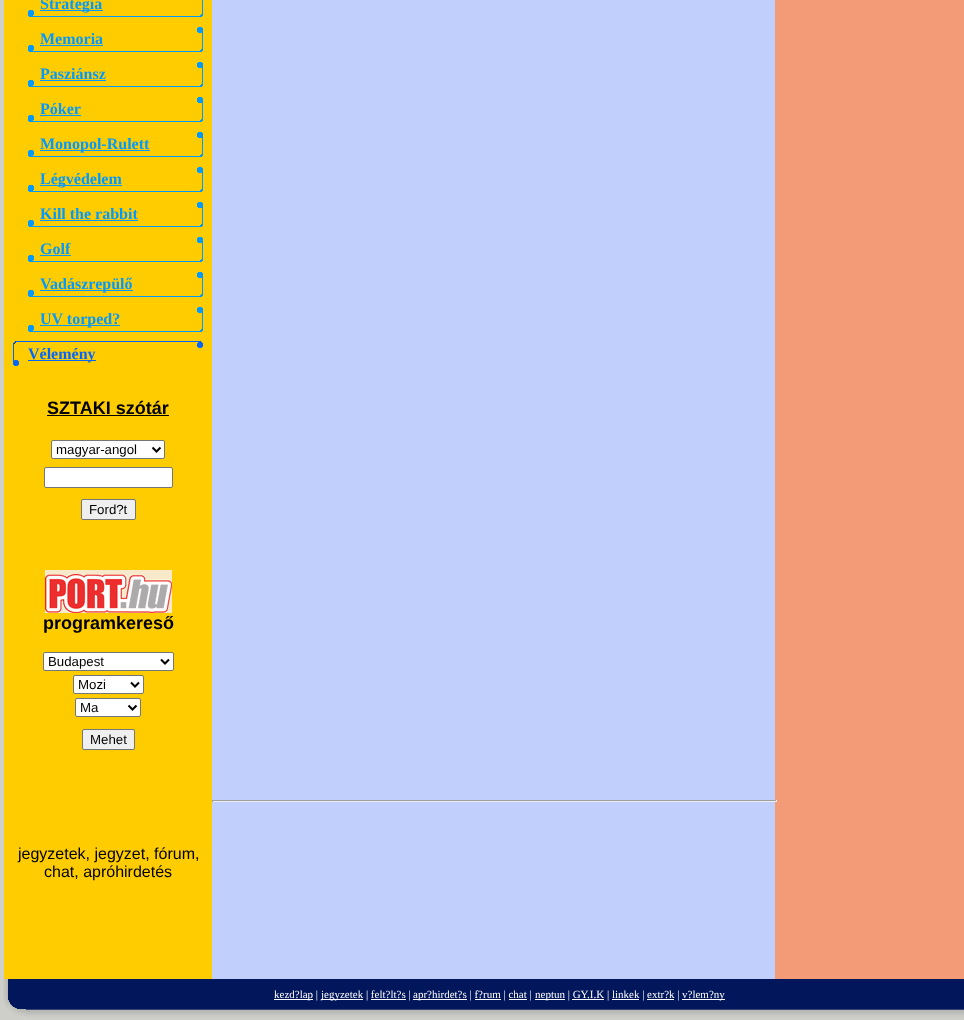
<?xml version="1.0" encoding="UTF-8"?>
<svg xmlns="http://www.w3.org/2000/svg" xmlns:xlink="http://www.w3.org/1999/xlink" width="964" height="1020">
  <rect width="100%" height="100%" fill="#cfcfca" />
  <rect x="4" width="208" height="979" fill="#ffcc00" />
  <image x="28" y="0" width="175" height="17" xlink:href="image1.png" />
  <rect x="40" y="10" width="63" height="1" fill="#0099ff" />
  <image x="28" y="27" width="175" height="25" xlink:href="image2.png" />
  <rect x="40" y="45" width="63" height="1" fill="#0099ff" />
  <image x="28" y="62" width="175" height="25" xlink:href="image2.png" />
  <rect x="40" y="80" width="66" height="1" fill="#0099ff" />
  <image x="28" y="97" width="175" height="25" xlink:href="image2.png" />
  <rect x="40" y="115" width="41" height="1" fill="#0099ff" />
  <image x="28" y="132" width="175" height="25" xlink:href="image2.png" />
  <rect x="40" y="150" width="110" height="1" fill="#0099ff" />
  <image x="28" y="167" width="175" height="25" xlink:href="image2.png" />
  <rect x="40" y="185" width="82" height="1" fill="#0099ff" />
  <image x="28" y="202" width="175" height="25" xlink:href="image2.png" />
  <rect x="40" y="220" width="98" height="1" fill="#0099ff" />
  <image x="28" y="237" width="175" height="25" xlink:href="image2.png" />
  <rect x="40" y="255" width="31" height="1" fill="#0099ff" />
  <image x="28" y="272" width="175" height="25" xlink:href="image2.png" />
  <rect x="40" y="290" width="93" height="1" fill="#0099ff" />
  <image x="28" y="307" width="175" height="25" xlink:href="image2.png" />
  <rect x="40" y="325" width="80" height="1" fill="#0099ff" />
  <image x="13" y="341" width="190" height="25" xlink:href="image3.png" />
  <rect x="28" y="360" width="68" height="1" fill="#0066ff" />
  <rect x="47" y="415" width="122" height="1" fill="#000000" />
  <rect x="51.5" y="440.5" width="113" height="18" rx="1.5" fill="#ffffff" stroke="#767676" />
  <path d="M 152.5 447.5 l 4 4 l 4 -4" fill="none" stroke="#000000" stroke-width="2" />
  <rect x="44.5" y="467.5" width="128" height="20" rx="1.5" fill="#ffffff" stroke="#767676" />
  <rect x="81.5" y="499.5" width="54" height="20" rx="1.5" fill="#efefef" stroke="#767676" />
  <image x="45" y="570" width="127" height="43" xlink:href="image4.png" />
  <rect x="43.5" y="652.5" width="130" height="18" rx="1.5" fill="#ffffff" stroke="#767676" />
  <path d="M 161 659.5 l 4 4 l 4 -4" fill="none" stroke="#000000" stroke-width="2" />
  <rect x="73.5" y="675.5" width="70" height="18" rx="1.5" fill="#ffffff" stroke="#767676" />
  <path d="M 131 682.5 l 4 4 l 4 -4" fill="none" stroke="#000000" stroke-width="2" />
  <rect x="75.5" y="698.5" width="65" height="18" rx="1.5" fill="#ffffff" stroke="#767676" />
  <path d="M 128.5 705.5 l 4 4 l 4 -4" fill="none" stroke="#000000" stroke-width="2" />
  <rect x="82.5" y="729.5" width="52" height="20" rx="1.5" fill="#efefef" stroke="#767676" />
  <rect x="212" width="563" height="979" fill="#c1cffd" />
  <rect x="775" width="189" height="979" fill="#f39b76" />
  <rect x="212" y="800" width="565" height="1" fill="#9f9f9f" />
  <rect x="776" y="800" width="1" height="2" fill="#eeeeee" />
  <rect x="212" y="801" width="565" height="1" fill="#eeeeee" />
  <rect x="212" y="800" width="1" height="2" fill="#9f9f9f" />
  <image x="3" y="979" width="23" height="37" xlink:href="image5.png" />
  <image x="26" y="979" width="938" height="38" xlink:href="image6.png" />
  <rect x="274" y="999" width="39" height="1" fill="#ffffff" />
  <rect x="321" y="999" width="42" height="1" fill="#ffffff" />
  <rect x="371" y="999" width="35" height="1" fill="#ffffff" />
  <rect x="413" y="999" width="54" height="1" fill="#ffffff" />
  <rect x="475" y="999" width="26" height="1" fill="#ffffff" />
  <rect x="509" y="999" width="18" height="1" fill="#ffffff" />
  <rect x="535" y="999" width="30" height="1" fill="#ffffff" />
  <rect x="572" y="999" width="32" height="1" fill="#ffffff" />
  <rect x="612" y="999" width="27" height="1" fill="#ffffff" />
  <rect x="647" y="999" width="27" height="1" fill="#ffffff" />
  <rect x="682" y="999" width="43" height="1" fill="#ffffff" />
  <text x="40" y="9" style="font-family: Liberation Serif; font-size: 16px; font-weight: bold; fill: #0099ff">Stratégia</text>
  <text x="40" y="44" style="font-family: Liberation Serif; font-size: 16px; font-weight: bold; fill: #0099ff">Memoria</text>
  <text x="40" y="79" style="font-family: Liberation Serif; font-size: 16px; font-weight: bold; fill: #0099ff">Pasziánsz</text>
  <text x="40" y="114" style="font-family: Liberation Serif; font-size: 16px; font-weight: bold; fill: #0099ff">Póker</text>
  <text x="40" y="149" style="font-family: Liberation Serif; font-size: 16px; font-weight: bold; fill: #0099ff">Monopol-Rulett</text>
  <text x="40" y="184" style="font-family: Liberation Serif; font-size: 16px; font-weight: bold; fill: #0099ff">Légvédelem</text>
  <text x="40" y="219" style="font-family: Liberation Serif; font-size: 16px; font-weight: bold; fill: #0099ff">Kill the rabbit</text>
  <text x="40" y="254" style="font-family: Liberation Serif; font-size: 16px; font-weight: bold; fill: #0099ff">Golf</text>
  <text x="40" y="289" style="font-family: Liberation Serif; font-size: 16px; font-weight: bold; fill: #0099ff">Vadászrepülő</text>
  <text x="40" y="324" style="font-family: Liberation Serif; font-size: 16px; font-weight: bold; fill: #0099ff">UV torped?</text>
  <text x="28" y="359" style="font-family: Liberation Serif; font-size: 16px; font-weight: bold; fill: #0066ff">Vélemény</text>
  <text x="47" y="414" style="font-family: Liberation Sans; font-size: 18px; font-weight: bold; fill: #000000">SZTAKI szótár</text>
  <text x="56" y="454" style="font-family: Liberation Sans; font-size: 13.25px; fill: #000000">magyar-angol</text>
  <text x="89" y="514" style="font-family: Liberation Sans; font-size: 13.25px; fill: #000000">Ford?t</text>
  <text x="43" y="629" style="font-family: Liberation Sans; font-size: 18px; font-weight: bold; fill: #000000">programkereső</text>
  <text x="48" y="666" style="font-family: Liberation Sans; font-size: 13.25px; fill: #000000">Budapest</text>
  <text x="78" y="689" style="font-family: Liberation Sans; font-size: 13.25px; fill: #000000">Mozi</text>
  <text x="80" y="712" style="font-family: Liberation Sans; font-size: 13.25px; fill: #000000">Ma</text>
  <text x="90" y="744" style="font-family: Liberation Sans; font-size: 13.25px; fill: #000000">Mehet</text>
  <text x="18" y="859" style="font-family: Liberation Sans; font-size: 16px; fill: #000000">jegyzetek, jegyzet, fórum,</text>
  <text x="44" y="877" style="font-family: Liberation Sans; font-size: 16px; fill: #000000">chat, apróhirdetés</text>
  <text x="274" y="998" style="font-family: Liberation Serif; font-size: 11px; fill: #ffffff">kezd?lap |</text>
  <text x="321" y="998" style="font-family: Liberation Serif; font-size: 11px; fill: #ffffff">jegyzetek | felt?lt?s |</text>
  <text x="413" y="998" style="font-family: Liberation Serif; font-size: 11px; fill: #ffffff">apr?hirdet?s | f?rum | chat |</text>
  <text x="535" y="998" style="font-family: Liberation Serif; font-size: 11px; fill: #ffffff">neptun | GY.I.K | linkek | extr?k |</text>
  <text x="682" y="998" style="font-family: Liberation Serif; font-size: 11px; fill: #ffffff">v?lem?ny</text>
</svg>
